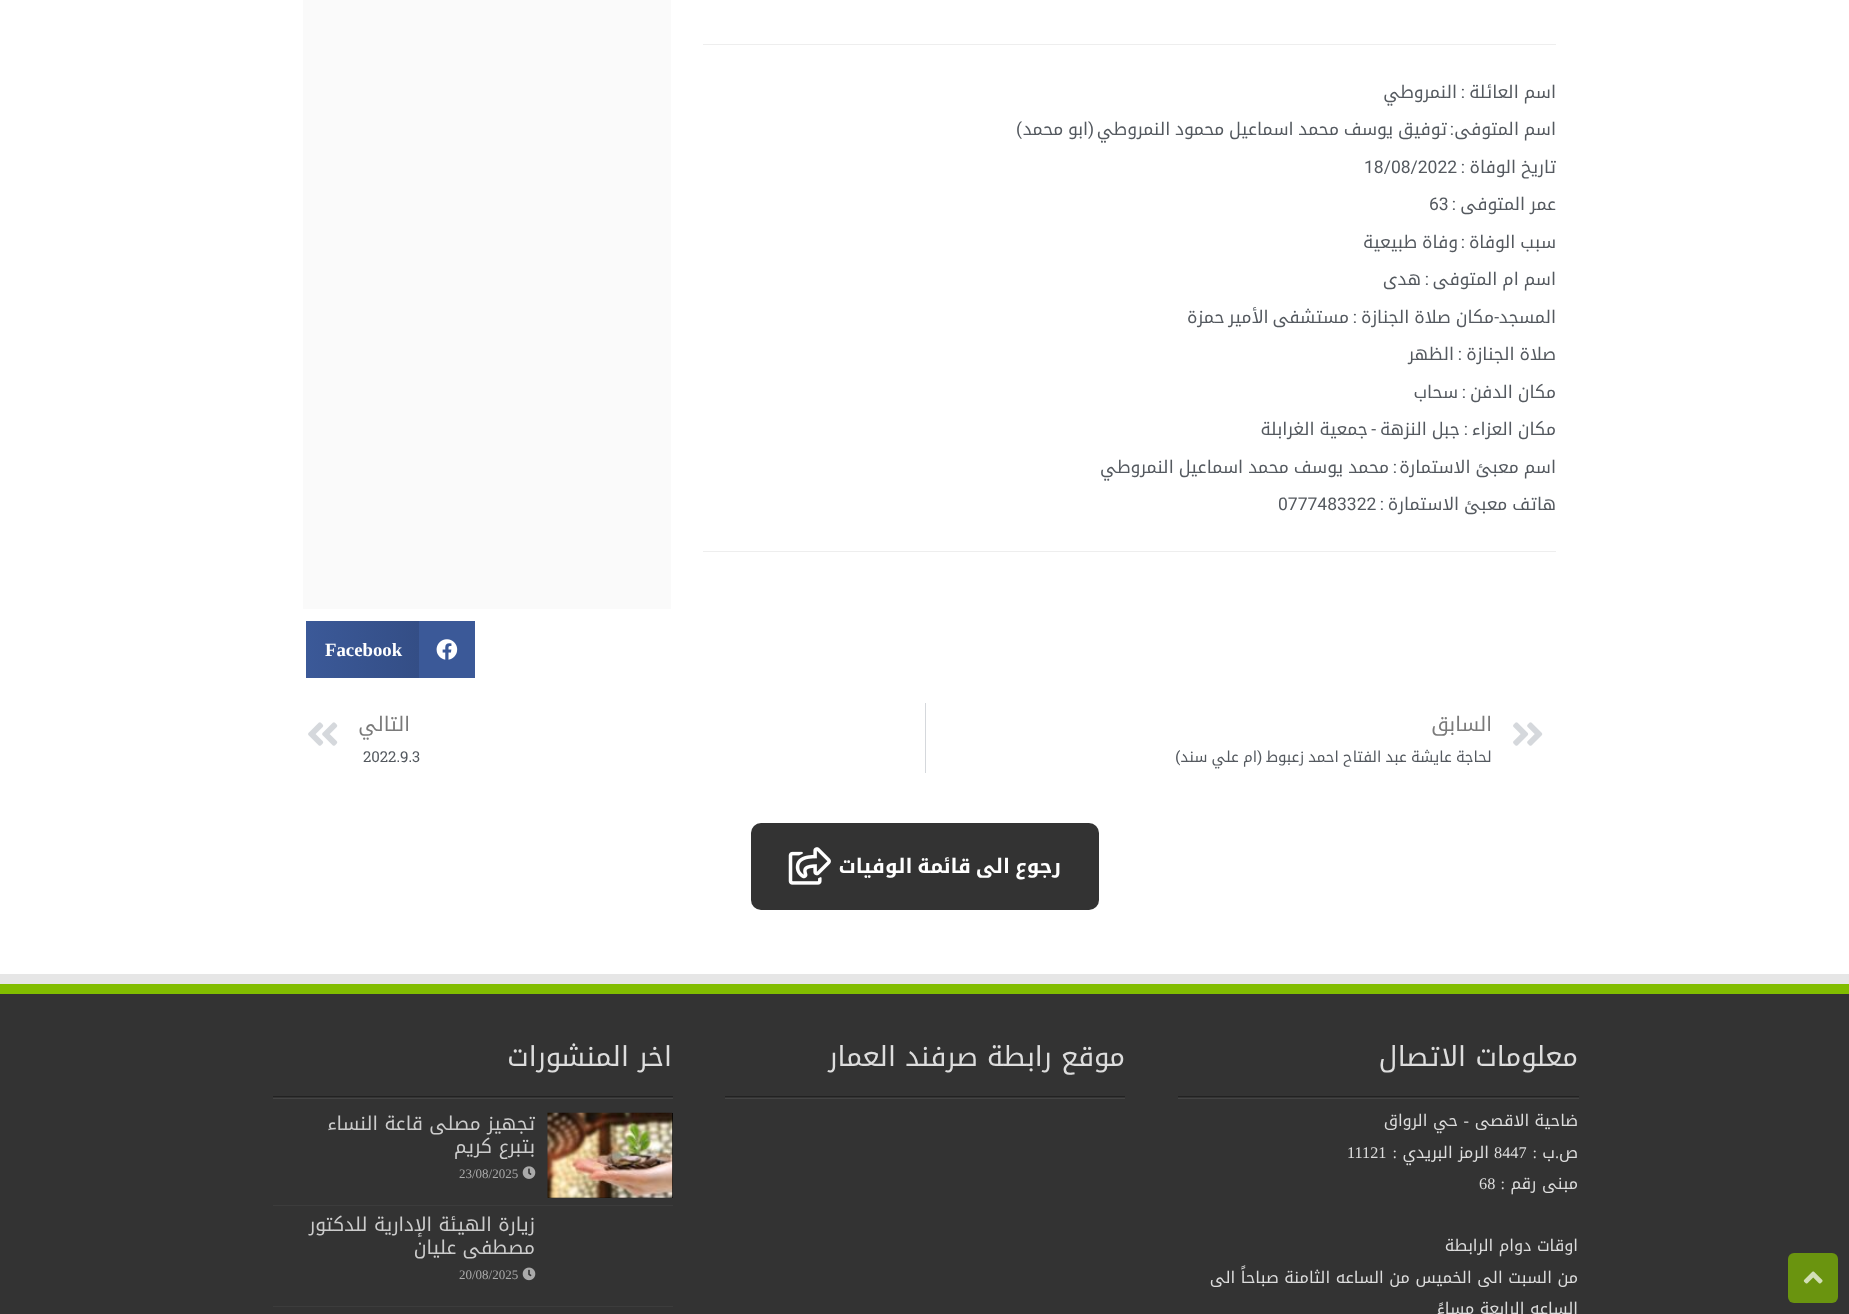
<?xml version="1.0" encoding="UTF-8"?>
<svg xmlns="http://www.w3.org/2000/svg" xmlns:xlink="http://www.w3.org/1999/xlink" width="1849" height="1314">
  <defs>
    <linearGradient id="g1" gradientUnits="userSpaceOnUse" x1="419" y1="649" x2="306" y2="649"><stop offset="0" stop-color="#344e86" /><stop offset="1" stop-color="#3b5998" /></linearGradient>
    <clipPath id="clip1"><rect x="926" y="744" width="567" height="27" /></clipPath>
  </defs>
  <rect width="100%" height="100%" fill="#ffffff" />
  <rect y="994" width="1849" height="320" fill="#333333" />
  <rect x="1788" y="1253" width="50" height="50" rx="6" fill="#6a940f" />
  <image x="1803" y="1271" width="20" height="13" xlink:href="image1.png" />
  <rect x="703" y="44" width="853" height="1" fill="#eeeeee" />
  <rect x="703" y="551" width="853" height="1" fill="#eeeeee" />
  <rect x="303" width="368" height="609" fill="#fafafa" />
  <rect x="419" y="621" width="56" height="57" fill="#3b5998" />
  <image x="436" y="639" width="22" height="21" xlink:href="image2.png" />
  <rect x="306" y="621" width="113" height="57" fill="url(#g1)" />
  <image x="1513" y="722" width="30" height="24" xlink:href="image3.png" />
  <rect x="925" y="703" width="1" height="70" fill="#d5d8dc" />
  <image x="308" y="722" width="30" height="24" xlink:href="image4.png" />
  <rect x="751" y="823" width="348" height="87" rx="10" fill="#333333" />
  <image x="788" y="847" width="43" height="38" xlink:href="image5.png" />
  <rect y="974" width="1849" height="10" fill="#e6e6e6" />
  <rect y="984" width="1849" height="10" fill="#81bd00" />
  <rect x="1178" y="1096" width="401" height="1" fill="#222222" />
  <rect x="1178" y="1098" width="401" height="1" fill="#444444" />
  <rect x="725" y="1096" width="400" height="1" fill="#222222" />
  <rect x="725" y="1098" width="400" height="1" fill="#444444" />
  <rect x="273" y="1096" width="400" height="1" fill="#222222" />
  <rect x="273" y="1098" width="400" height="1" fill="#444444" />
  <rect x="273" y="1205" width="400" height="1" fill="#3c3c3c" />
  <rect x="548" y="1113" width="125" height="85" fill="#000000" />
  <image x="547" y="1112" width="126" height="86" xlink:href="image6.png" />
  <image x="522" y="1166" width="14" height="13" xlink:href="image7.png" />
  <rect x="273" y="1306" width="400" height="1" fill="#3c3c3c" />
  <image x="522" y="1267" width="14" height="14" xlink:href="image8.png" />
  <text x="1556" y="98" word-spacing="-1" style="font-family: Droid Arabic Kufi; font-size: 17.5px; direction: rtl; fill: #54595f">اسم العائلة</text>
  <text x="1465" y="98" style="font-family: Roboto; font-size: 17.5px; direction: rtl; fill: #54595f">:</text>
  <text x="1457" y="98" style="font-family: Droid Arabic Kufi; font-size: 17.5px; direction: rtl; fill: #54595f">النمروطي</text>
  <text x="1556" y="135" word-spacing="-1.25" style="font-family: Droid Arabic Kufi; font-size: 17.5px; direction: rtl; fill: #54595f">اسم المتوفى</text>
  <text x="1447" y="135" word-spacing="-1.25" style="font-family: Droid Arabic Kufi; font-size: 17.5px; direction: rtl; fill: #54595f">توفيق يوسف محمد اسماعيل محمود النمروطي</text>
  <text x="1094" y="135" style="font-family: Roboto; font-size: 17.5px; direction: rtl; fill: #54595f">(</text>
  <text x="1088" y="135" word-spacing="-1.25" style="font-family: Droid Arabic Kufi; font-size: 17.5px; direction: rtl; fill: #54595f">ابو محمد</text>
  <text x="1022" y="135" style="font-family: Roboto; font-size: 17.5px; direction: rtl; fill: #54595f">)</text>
  <text x="1454" y="135" style="font-family: Roboto; font-size: 17.5px; direction: rtl; fill: #54595f">:</text>
  <text x="1556" y="173" word-spacing="-1" style="font-family: Droid Arabic Kufi; font-size: 17.5px; direction: rtl; fill: #54595f">تاريخ الوفاة</text>
  <text x="1465" y="173" style="font-family: Roboto; font-size: 17.5px; direction: rtl; fill: #54595f">:</text>
  <text x="1364" y="173" style="font-family: Roboto; font-size: 17.5px; fill: #54595f">18/08/2022</text>
  <text x="1556" y="210" word-spacing="-1" style="font-family: Droid Arabic Kufi; font-size: 17.5px; direction: rtl; fill: #54595f">عمر المتوفى</text>
  <text x="1456" y="210" style="font-family: Roboto; font-size: 17.5px; direction: rtl; fill: #54595f">:</text>
  <text x="1429" y="210" style="font-family: Roboto; font-size: 17.5px; fill: #54595f">63</text>
  <text x="1556" y="248" word-spacing="-1" style="font-family: Droid Arabic Kufi; font-size: 17.5px; direction: rtl; fill: #54595f">سبب الوفاة</text>
  <text x="1465" y="248" style="font-family: Roboto; font-size: 17.5px; direction: rtl; fill: #54595f">:</text>
  <text x="1458" y="248" word-spacing="-1" style="font-family: Droid Arabic Kufi; font-size: 17.5px; direction: rtl; fill: #54595f">وفاة طبيعية</text>
  <text x="1556" y="285" word-spacing="-1" style="font-family: Droid Arabic Kufi; font-size: 17.5px; direction: rtl; fill: #54595f">اسم ام المتوفى</text>
  <text x="1429" y="285" style="font-family: Roboto; font-size: 17.5px; direction: rtl; fill: #54595f">:</text>
  <text x="1421" y="285" style="font-family: Droid Arabic Kufi; font-size: 17.5px; direction: rtl; fill: #54595f">هدى</text>
  <text x="1556" y="323" style="font-family: Droid Arabic Kufi; font-size: 17.5px; direction: rtl; fill: #54595f">المسجد</text>
  <text x="1494" y="323" word-spacing="-1" style="font-family: Droid Arabic Kufi; font-size: 17.5px; direction: rtl; fill: #54595f">مكان صلاة الجنازة</text>
  <text x="1499" y="323" style="font-family: Roboto; font-size: 17.5px; direction: rtl; fill: #54595f">-</text>
  <text x="1357" y="323" style="font-family: Roboto; font-size: 17.5px; direction: rtl; fill: #54595f">:</text>
  <text x="1349" y="323" word-spacing="-2" style="font-family: Droid Arabic Kufi; font-size: 17.5px; direction: rtl; fill: #54595f">مستشفى الأمير حمزة</text>
  <text x="1556" y="360" word-spacing="-1" style="font-family: Droid Arabic Kufi; font-size: 17.5px; direction: rtl; fill: #54595f">صلاة الجنازة</text>
  <text x="1462" y="360" style="font-family: Roboto; font-size: 17.5px; direction: rtl; fill: #54595f">:</text>
  <text x="1454" y="360" style="font-family: Droid Arabic Kufi; font-size: 17.5px; direction: rtl; fill: #54595f">الظهر</text>
  <text x="1556" y="398" word-spacing="-1" style="font-family: Droid Arabic Kufi; font-size: 17.5px; direction: rtl; fill: #54595f">مكان الدفن</text>
  <text x="1466" y="398" style="font-family: Roboto; font-size: 17.5px; direction: rtl; fill: #54595f">:</text>
  <text x="1458" y="398" style="font-family: Droid Arabic Kufi; font-size: 17.5px; direction: rtl; fill: #54595f">سحاب</text>
  <text x="1556" y="435" word-spacing="-1" style="font-family: Droid Arabic Kufi; font-size: 17.5px; direction: rtl; fill: #54595f">مكان العزاء</text>
  <text x="1468" y="435" style="font-family: Roboto; font-size: 17.5px; direction: rtl; fill: #54595f">:</text>
  <text x="1460" y="435" word-spacing="-1" style="font-family: Droid Arabic Kufi; font-size: 17.5px; direction: rtl; fill: #54595f">جبل النزهة</text>
  <text x="1376" y="435" style="font-family: Roboto; font-size: 17.5px; direction: rtl; fill: #54595f">-</text>
  <text x="1368" y="435" word-spacing="-1" style="font-family: Droid Arabic Kufi; font-size: 17.5px; direction: rtl; fill: #54595f">جمعية الغرابلة</text>
  <text x="1556" y="473" word-spacing="-1" style="font-family: Droid Arabic Kufi; font-size: 17.5px; direction: rtl; fill: #54595f">اسم معبئ الاستمارة</text>
  <text x="1397" y="473" style="font-family: Roboto; font-size: 17.5px; direction: rtl; fill: #54595f">:</text>
  <text x="1389" y="473" word-spacing="-1" style="font-family: Droid Arabic Kufi; font-size: 17.5px; direction: rtl; fill: #54595f">محمد يوسف محمد اسماعيل النمروطي</text>
  <text x="1556" y="510" word-spacing="-1" style="font-family: Droid Arabic Kufi; font-size: 17.5px; direction: rtl; fill: #54595f">هاتف معبئ الاستمارة</text>
  <text x="1384" y="510" style="font-family: Roboto; font-size: 17.5px; direction: rtl; fill: #54595f">:</text>
  <text x="1278" y="510" style="font-family: Roboto; font-size: 17.5px; fill: #54595f">0777483322</text>
  <text x="325" y="656" style="font-family: Liberation Serif; font-size: 18.75px; font-weight: bold; fill: #ffffff">Facebook</text>
  <text x="1492" y="731" style="font-family: Droid Arabic Kufi; font-size: 20px; direction: rtl; fill: #7a7a7a">السابق</text>
  <g clip-path="url(#clip1)">
    <text x="1496" y="762" word-spacing="-1" style="font-family: Droid Arabic Kufi; font-size: 15px; direction: rtl; fill: #54595f">الحاجة عايشة عبد الفتاح احمد زعبوط</text>
  </g>
  <text x="1257" y="762" word-spacing="-1" style="font-family: Droid Arabic Kufi; font-size: 15px; direction: rtl; fill: #54595f">ام علي سند</text>
  <text x="1262" y="762" style="font-family: Roboto Slab; font-size: 15px; direction: rtl; fill: #54595f">(</text>
  <text x="1180" y="762" style="font-family: Roboto Slab; font-size: 15px; direction: rtl; fill: #54595f">)</text>
  <text x="410" y="731" style="font-family: Droid Arabic Kufi; font-size: 20px; direction: rtl; fill: #7a7a7a">التالي</text>
  <text x="363" y="762" style="font-family: Roboto Slab; font-size: 15px; fill: #54595f">2022.9.3</text>
  <text x="1061" y="873" word-spacing="-2" style="font-family: Droid Arabic Kufi; font-size: 20px; font-weight: bold; direction: rtl; fill: #ffffff">رجوع الى قائمة الوفيات</text>
  <text x="1578" y="1066" style="font-family: Droid Arabic Kufi; font-size: 27.5px; direction: rtl; fill: #dddddd">معلومات الاتصال</text>
  <text x="1578" y="1126" style="font-family: Droid Arabic Kufi; font-size: 16.25px; direction: rtl; fill: #dddddd">ضاحية الاقصى</text>
  <text x="1469" y="1126" style="font-family: Liberation Serif; font-size: 16.25px; direction: rtl; fill: #dddddd">-</text>
  <text x="1458" y="1126" style="font-family: Droid Arabic Kufi; font-size: 16.25px; direction: rtl; fill: #dddddd">حي الرواق</text>
  <text x="1578" y="1158" style="font-family: Droid Arabic Kufi; font-size: 16.25px; direction: rtl; fill: #dddddd">ص</text>
  <text x="1559" y="1158" style="font-family: Liberation Serif; font-size: 16.25px; direction: rtl; fill: #dddddd">.</text>
  <text x="1555" y="1158" style="font-family: Droid Arabic Kufi; font-size: 16.25px; direction: rtl; fill: #dddddd">ب</text>
  <text x="1537" y="1158" style="font-family: Liberation Serif; font-size: 16.25px; direction: rtl; fill: #dddddd">:</text>
  <text x="1494" y="1158" style="font-family: Liberation Serif; font-size: 16.25px; fill: #dddddd">8447</text>
  <text x="1489" y="1158" style="font-family: Droid Arabic Kufi; font-size: 16.25px; direction: rtl; fill: #dddddd">الرمز البريدي</text>
  <text x="1397" y="1158" style="font-family: Liberation Serif; font-size: 16.25px; direction: rtl; fill: #dddddd">:</text>
  <text x="1347" y="1158" style="font-family: Liberation Serif; font-size: 16.25px; fill: #dddddd">11121</text>
  <text x="1578" y="1189" style="font-family: Droid Arabic Kufi; font-size: 16.25px; direction: rtl; fill: #dddddd">مبنى رقم</text>
  <text x="1505" y="1189" style="font-family: Liberation Serif; font-size: 16.25px; direction: rtl; fill: #dddddd">:</text>
  <text x="1479" y="1189" style="font-family: Liberation Serif; font-size: 16.25px; fill: #dddddd">68</text>
  <text x="1578" y="1251" style="font-family: Droid Arabic Kufi; font-size: 16.25px; direction: rtl; fill: #dddddd">اوقات دوام الرابطة</text>
  <text x="1578" y="1283" style="font-family: Droid Arabic Kufi; font-size: 16.25px; direction: rtl; fill: #dddddd">من السبت الى الخميس من الساعه الثامنة صباحاً الى</text>
  <text x="1578" y="1314" style="font-family: Droid Arabic Kufi; font-size: 16.25px; direction: rtl; fill: #dddddd">الساعه الرابعة مساءً</text>
  <text x="1125" y="1066" style="font-family: Droid Arabic Kufi; font-size: 27.5px; direction: rtl; fill: #dddddd">موقع رابطة صرفند العمار</text>
  <text x="672" y="1066" style="font-family: Droid Arabic Kufi; font-size: 27.5px; direction: rtl; fill: #dddddd">اخر المنشورات</text>
  <text x="535" y="1130" style="font-family: Droid Arabic Kufi; font-size: 19px; direction: rtl; fill: #cccccc">تجهيز مصلى قاعة النساء</text>
  <text x="535" y="1153" style="font-family: Droid Arabic Kufi; font-size: 19px; direction: rtl; fill: #cccccc">بتبرع كريم</text>
  <text x="459" y="1178" style="font-family: Liberation Serif; font-size: 13px; fill: #aaaaaa">23/08/2025</text>
  <text x="535" y="1231" style="font-family: Droid Arabic Kufi; font-size: 19px; direction: rtl; fill: #cccccc">زيارة الهيئة الإدارية للدكتور</text>
  <text x="535" y="1254" style="font-family: Droid Arabic Kufi; font-size: 19px; direction: rtl; fill: #cccccc">مصطفى عليان</text>
  <text x="459" y="1279" style="font-family: Liberation Serif; font-size: 13px; fill: #aaaaaa">20/08/2025</text>
</svg>
